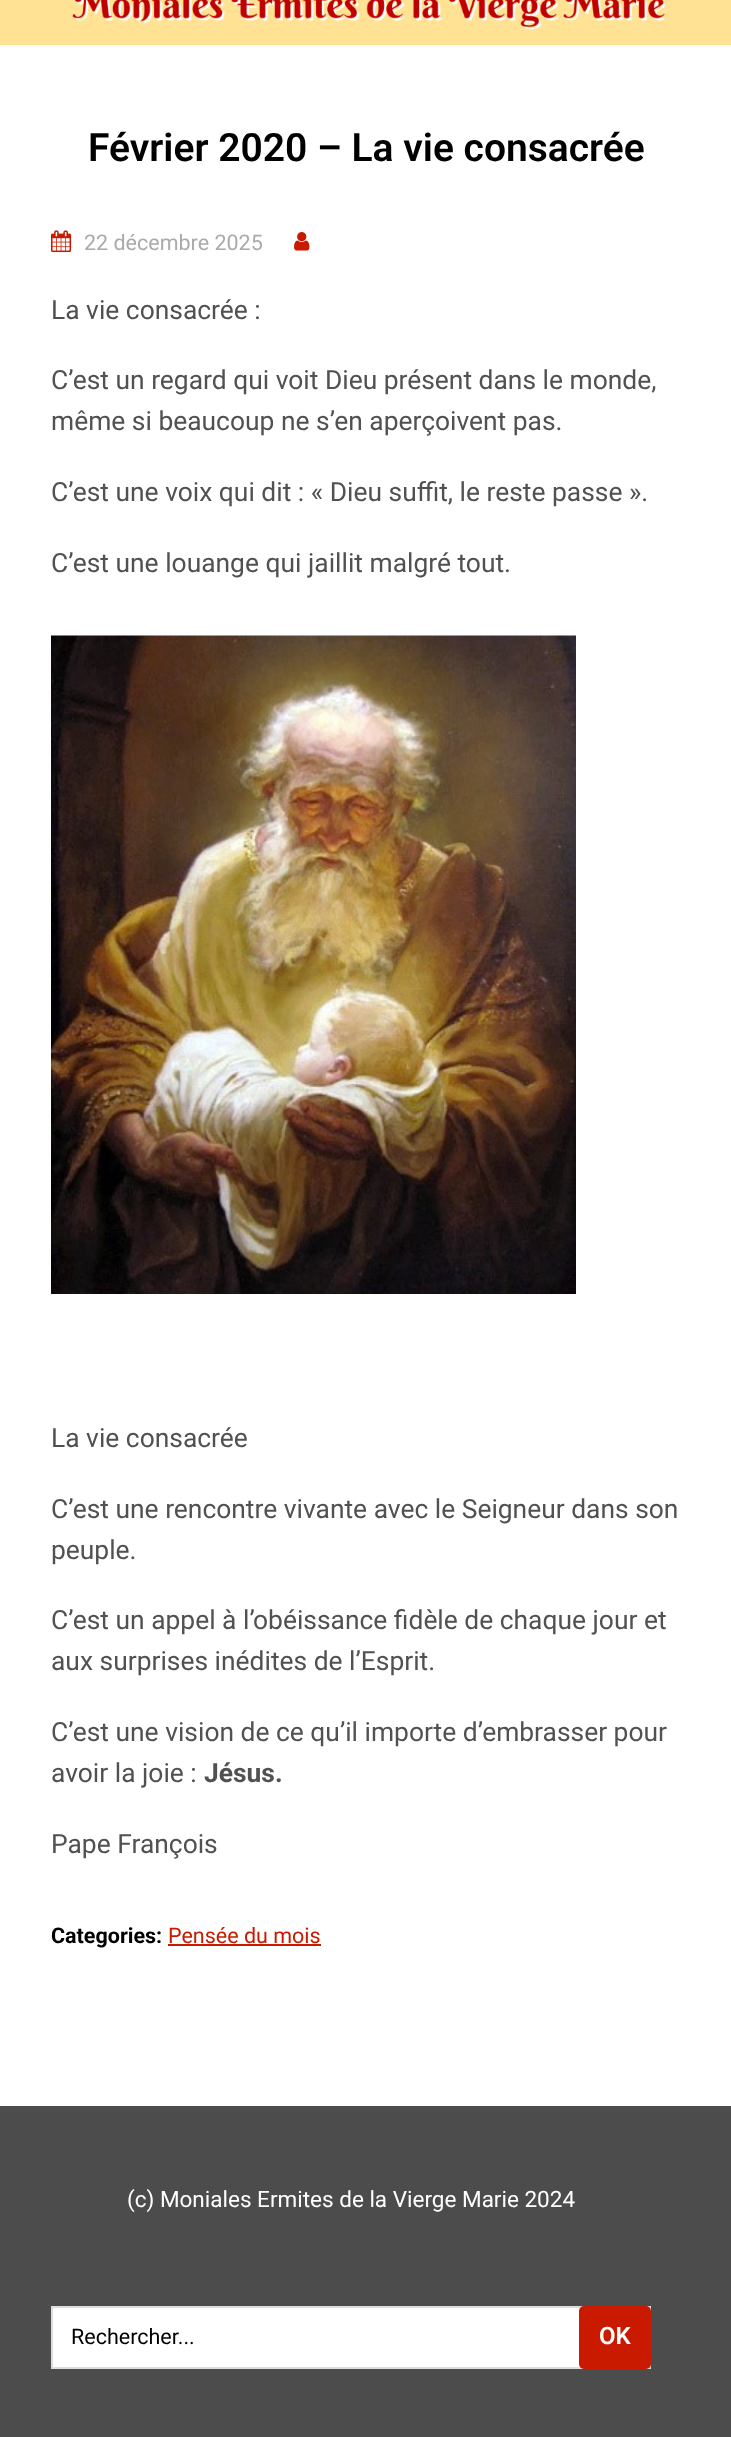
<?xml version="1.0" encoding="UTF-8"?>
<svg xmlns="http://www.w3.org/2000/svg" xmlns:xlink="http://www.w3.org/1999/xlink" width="731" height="2437">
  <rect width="100%" height="100%" fill="#ffffff" />
  <rect width="731" height="45" fill="#ffe293" />
  <image x="72" y="0" width="593" height="30" xlink:href="image1.png" />
  <image x="51" y="230" width="21" height="23" xlink:href="image2.png" />
  <image x="294" y="232" width="16" height="19" xlink:href="image3.png" />
  <image x="51" y="635" width="525" height="659" xlink:href="image4.png" />
  <rect x="168" y="1944" width="153" height="2" fill="#c91a00" />
  <rect y="2106" width="731" height="331" fill="#4c4c4c" />
  <rect x="53" y="2308" width="527" height="59" fill="#ffffff" />
  <rect x="52" y="2307" width="598" height="61" fill="none" stroke="#dddddd" stroke-width="2" />
  <rect x="579" y="2306" width="72" height="63" rx="5" fill="#c91a00" />
  <text x="88" y="161" style="font-family: Roboto; font-size: 39px; font-weight: 600; fill: #000000">Février 2020 – La vie consacrée</text>
  <text x="84" y="250" style="font-family: Roboto; font-size: 21.5px; fill: #aaaaaa">22 décembre 2025</text>
  <text x="51" y="319" style="font-family: Roboto; font-size: 26.4px; fill: #515151">La vie consacrée :</text>
  <text x="51" y="389" style="font-family: Roboto; font-size: 26.4px; fill: #515151">C’est un regard qui voit Dieu présent dans le monde,</text>
  <text x="51" y="430" style="font-family: Roboto; font-size: 26.4px; fill: #515151">même si beaucoup ne s’en aperçoivent pas.</text>
  <text x="51" y="501" style="font-family: Roboto; font-size: 26.4px; fill: #515151">C’est une voix qui dit : « Dieu suffit, le reste passe ».</text>
  <text x="51" y="572" style="font-family: Roboto; font-size: 26.4px; fill: #515151">C’est une louange qui jaillit malgré tout.</text>
  <text x="51" y="1447" style="font-family: Roboto; font-size: 26.4px; fill: #515151">La vie consacrée</text>
  <text x="51" y="1518" style="font-family: Roboto; font-size: 26.4px; fill: #515151">C’est une rencontre vivante avec le Seigneur dans son</text>
  <text x="51" y="1559" style="font-family: Roboto; font-size: 26.4px; fill: #515151">peuple.</text>
  <text x="51" y="1629" style="font-family: Roboto; font-size: 26.4px; fill: #515151">C’est un appel à l’obéissance fidèle de chaque jour et</text>
  <text x="51" y="1670" style="font-family: Roboto; font-size: 26.4px; fill: #515151">aux surprises inédites de l’Esprit.</text>
  <text x="51" y="1741" style="font-family: Roboto; font-size: 26.4px; fill: #515151">C’est une vision de ce qu’il importe d’embrasser pour</text>
  <text x="51" y="1782" style="font-family: Roboto; font-size: 26.4px; fill: #515151">avoir la joie :</text>
  <text x="204" y="1782" style="font-family: Roboto; font-size: 26.4px; font-weight: bold; fill: #515151">Jésus.</text>
  <text x="51" y="1853" style="font-family: Roboto; font-size: 26.4px; fill: #515151">Pape François</text>
  <text x="51" y="1943" style="font-family: Roboto; font-size: 21.5px; font-weight: bold; fill: #000000">Categories:</text>
  <text x="168" y="1943" style="font-family: Roboto; font-size: 21.5px; fill: #c91a00">Pensée du mois</text>
  <text x="127" y="2207" style="font-family: Roboto; font-size: 22.5px; fill: #ffffff">(c) Moniales Ermites de la Vierge Marie 2024</text>
  <text x="71" y="2344" style="font-family: Roboto; font-size: 21.5px; fill: #000000">Rechercher...</text>
  <text x="599" y="2344" style="font-family: Roboto; font-size: 24px; font-weight: 600; fill: #ffffff">OK</text>
</svg>
